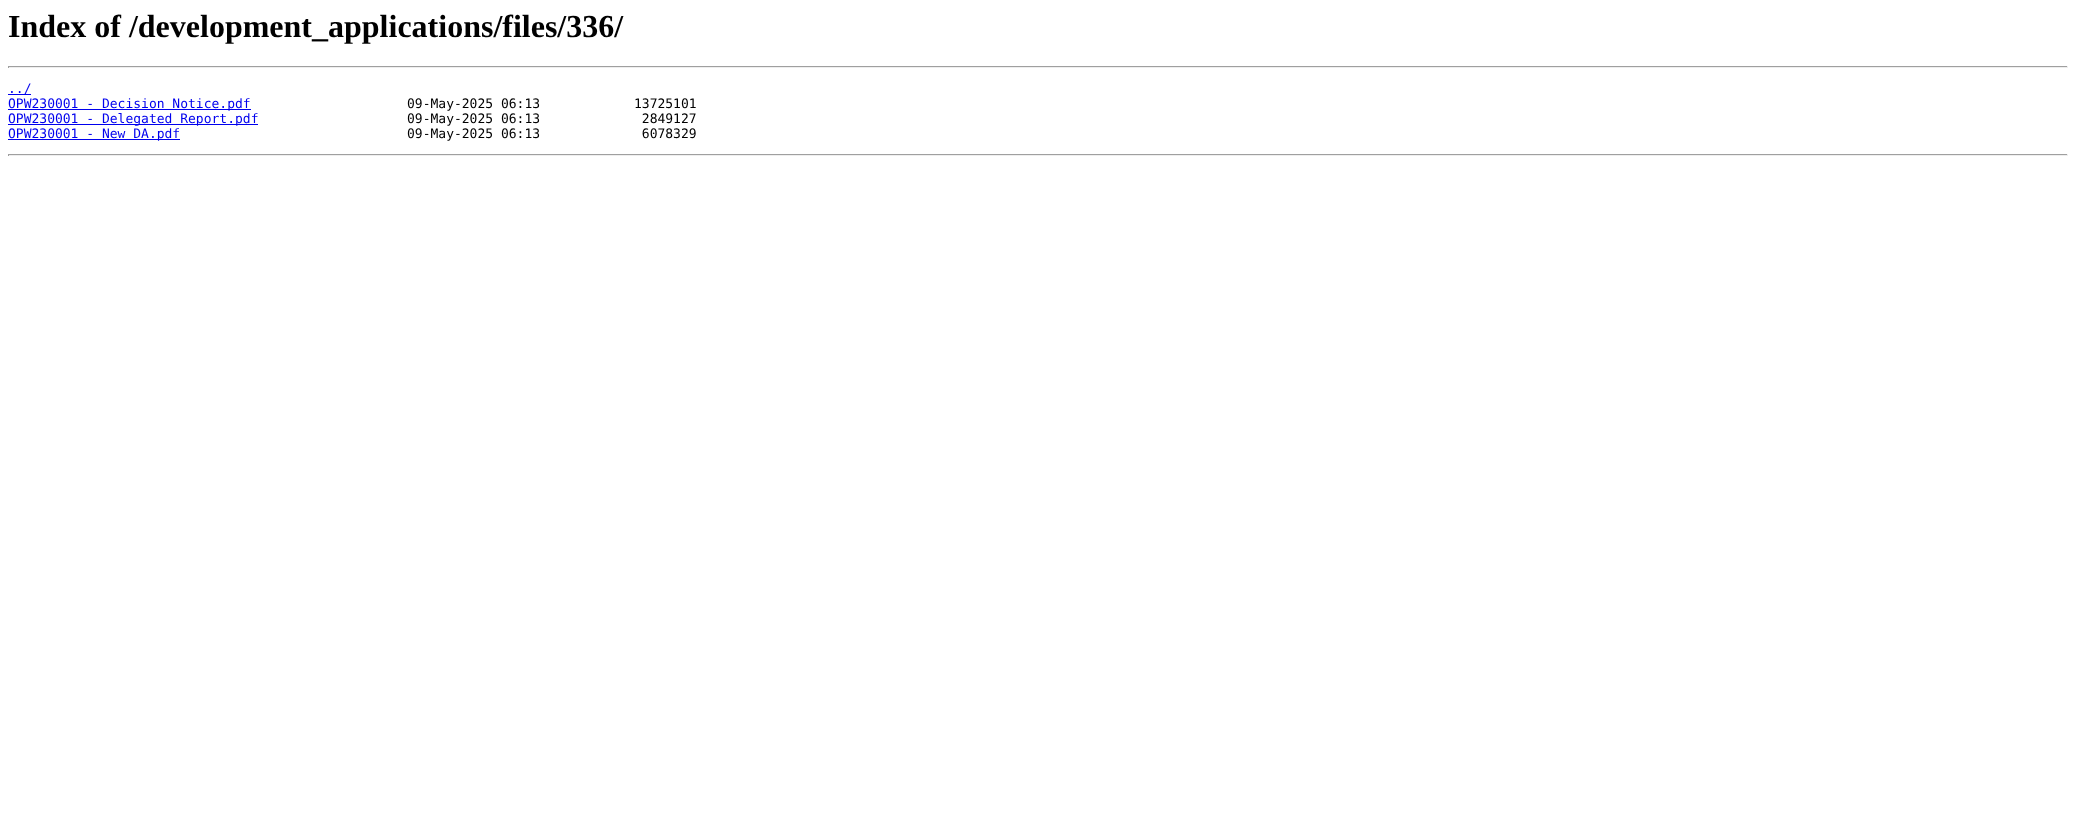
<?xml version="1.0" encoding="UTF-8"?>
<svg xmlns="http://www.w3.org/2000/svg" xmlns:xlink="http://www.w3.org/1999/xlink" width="2076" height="815">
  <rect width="100%" height="100%" fill="#ffffff" />
  <rect x="8" y="66" width="2060" height="1" fill="#9f9f9f" />
  <rect x="2067" y="66" width="1" height="2" fill="#eeeeee" />
  <rect x="8" y="67" width="2060" height="1" fill="#eeeeee" />
  <rect x="8" y="66" width="1" height="2" fill="#9f9f9f" />
  <rect x="8" y="94" width="23" height="1" fill="#0000ee" />
  <rect x="8" y="109" width="243" height="1" fill="#0000ee" />
  <rect x="8" y="124" width="250" height="1" fill="#0000ee" />
  <rect x="8" y="139" width="172" height="1" fill="#0000ee" />
  <rect x="8" y="154" width="2060" height="1" fill="#9f9f9f" />
  <rect x="2067" y="154" width="1" height="2" fill="#eeeeee" />
  <rect x="8" y="155" width="2060" height="1" fill="#eeeeee" />
  <rect x="8" y="154" width="1" height="2" fill="#9f9f9f" />
  <text x="8" y="37" style="font-family: Liberation Serif; font-size: 32px; font-weight: bold; fill: #000000">Index of /development_applications/files/336/</text>
  <text x="8" y="93" style="font-family: DejaVu Sans Mono; font-size: 13px; fill: #0000ee">../</text>
  <text x="8" y="108" style="font-family: DejaVu Sans Mono; font-size: 13px; fill: #0000ee">OPW230001 - Decision Notice.pdf</text>
  <text x="407" y="108" style="font-family: DejaVu Sans Mono; font-size: 13px; fill: #000000" xml:space="preserve">09-May-2025 06:13            13725101</text>
  <text x="8" y="123" style="font-family: DejaVu Sans Mono; font-size: 13px; fill: #0000ee">OPW230001 - Delegated Report.pdf</text>
  <text x="407" y="123" style="font-family: DejaVu Sans Mono; font-size: 13px; fill: #000000" xml:space="preserve">09-May-2025 06:13             2849127</text>
  <text x="8" y="138" style="font-family: DejaVu Sans Mono; font-size: 13px; fill: #0000ee">OPW230001 - New DA.pdf</text>
  <text x="407" y="138" style="font-family: DejaVu Sans Mono; font-size: 13px; fill: #000000" xml:space="preserve">09-May-2025 06:13             6078329</text>
</svg>
